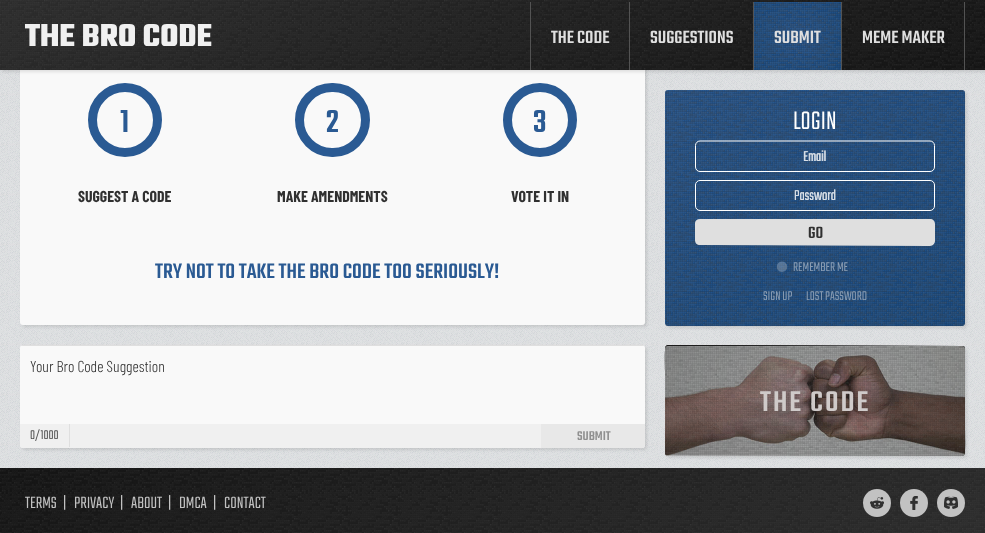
<?xml version="1.0" encoding="UTF-8"?>
<svg xmlns="http://www.w3.org/2000/svg" xmlns:xlink="http://www.w3.org/1999/xlink" width="985" height="533">
  <defs>
    <linearGradient id="g1" gradientUnits="userSpaceOnUse" x1="391" y1="-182" x2="594" y2="252"><stop offset="0" stop-color="#303030" /><stop offset="1" stop-color="#151515" /></linearGradient>
    <radialGradient id="g2" gradientUnits="userSpaceOnUse" cx="798" cy="37" r="56"><stop offset="0" stop-color="#2a5a93" /><stop offset="1" stop-color="#1d5088" /></radialGradient>
    <clipPath id="clip1"><rect x="20" y="345" width="625" height="103" rx="3" /></clipPath>
    <linearGradient id="g3" gradientUnits="userSpaceOnUse" x1="743" y1="54" x2="887" y2="362"><stop offset="0" stop-color="#2a5a93" /><stop offset="1" stop-color="#1d5088" /></linearGradient>
    <linearGradient id="g4" gradientUnits="userSpaceOnUse" x1="767" y1="298" x2="863" y2="503"><stop offset="0" stop-color="#151515" /><stop offset="1" stop-color="#303030" /></linearGradient>
    <radialGradient id="g5" gradientUnits="userSpaceOnUse" cx="0" cy="0" r="1" gradientTransform="matrix(212 0 0 78 815 401)"><stop offset="0" stop-color="#303030" /><stop offset="1" stop-color="#151515" /></radialGradient>
    <linearGradient id="g6" gradientUnits="userSpaceOnUse" x1="391" y1="286" x2="594" y2="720"><stop offset="0" stop-color="#151515" /><stop offset="1" stop-color="#303030" /></linearGradient>
  </defs>
  <rect width="100%" height="100%" fill="#e8e8e8" />
  <image x="0" y="70" width="985" height="398" xlink:href="image1.png" />
  <rect x="22" y="36" width="625" height="291" rx="3" fill="#000000" fill-opacity="0.1" filter="blur(1.5px)" />
  <rect x="20" y="34" width="625" height="291" rx="3" fill="#f9f9f9" />
  <rect x="2" y="2" width="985" height="70" fill="#000000" fill-opacity="0.1" filter="blur(1.5px)" />
  <rect width="985" height="70" fill="url(#g1)" />
  <image x="0" y="0" width="985" height="70" xlink:href="image2.png" />
  <image x="25" y="24" width="187" height="22" xlink:href="image3.png" />
  <rect x="964" y="2" width="1" height="68" fill="#535353" />
  <rect x="530" y="2" width="1" height="68" fill="#535353" />
  <rect x="629" y="2" width="1" height="68" fill="#535353" />
  <rect x="753" y="2" width="1" height="68" fill="#535353" />
  <rect x="754" y="2" width="87" height="68" fill="url(#g2)" />
  <image x="754" y="2" width="87" height="68" xlink:href="image4.png" />
  <rect x="841" y="2" width="1" height="68" fill="#535353" />
  <circle cx="125" cy="120" r="32.5" fill="none" stroke="#2a5a93" stroke-width="9" />
  <rect x="299.5" y="87.5" width="66" height="65" rx="32.5" fill="none" stroke="#2a5a93" stroke-width="9" />
  <circle cx="540" cy="120" r="32.5" fill="none" stroke="#2a5a93" stroke-width="9" />
  <rect x="22" y="347" width="625" height="103" rx="3" fill="#000000" fill-opacity="0.1" filter="blur(1.5px)" />
  <rect x="20" y="345" width="625" height="103" rx="3" fill="#f9f9f9" />
  <g clip-path="url(#clip1)">
    <rect x="20" y="345" width="625" height="1" fill="#dfdfdf" />
  </g>
  <path d="M 20 424 h 625 v 21 c 0 1.5 -1.5 3 -3 3 h -619 c -1.5 0 -3 -1.5 -3 -3 z" fill="#f0f0f0" />
  <rect x="69" y="424" width="1" height="23" fill="#dfdfdf" />
  <path d="M 541 424 h 104 v 21 c 0 1.5 -1.5 3 -3 3 h -101 z" fill="#dfdfdf" fill-opacity="0.5" />
  <rect x="667" y="92" width="300" height="236" rx="3" fill="#000000" fill-opacity="0.1" filter="blur(1.5px)" />
  <path d="M 965 323 c 0 1 -1 3 -3 3 h -294 c -2 0 -3 -2 -3 -3 v -230 c 0 -2 1 -3 3 -3 h 294 c 2 0 3 1 3 3 z" fill="url(#g3)" />
  <image x="665" y="90" width="300" height="236" xlink:href="image5.png" />
  <path d="M 700 141 h 230 c 2.5 0 4.5 2 4.5 4.5 v 21.5 c 0 2.5 -2 4.5 -4.5 4.5 h -230 c -2.5 0 -4.5 -2 -4.5 -4.5 v -21.5 c 0 -2.5 2 -4.5 4.5 -4.5 z" fill="none" stroke="#ffffff" />
  <path d="M 700 180.5 h 230 c 2.5 0 4.5 2 4.5 4.5 v 21 c 0 2.5 -2 4.5 -4.5 4.5 h -230 c -2.5 0 -4.5 -2 -4.5 -4.5 v -21 c 0 -2.5 2 -4.5 4.5 -4.5 z" fill="none" stroke="#ffffff" />
  <path d="M 700 219 h 230 c 3 0 5 2 5 5 v 17 c 0 2 -2 5 -5 5 l -230 -1 c -3 0 -5 -2 -5 -5 v -17 c 0 -2 2 -4 5 -4 z" fill="#dfdfdf" />
  <path d="M 782 261.5 c 7 0 7 10.5 0 10.5 c -7 0 -7 -10.5 0 -10.5 z" fill="#f0f0f0" fill-opacity="0.25" />
  <rect x="667" y="348" width="300" height="110" rx="3" fill="#000000" fill-opacity="0.1" filter="blur(1.5px)" />
  <path d="M 668 345 l 294 1 c 2 0 3 1 3 3 v 104 c 0 1 -1 3 -3 3 l -294 -1 c -2 0 -3 -1 -3 -3 v -104 c 0 -1 1 -3 3 -3 z" fill="url(#g4)" />
  <image x="665" y="347" width="300" height="109" xlink:href="image6.png" />
  <path d="M 668 345 l 296 1 l 1 2 v 79 c 0 4 1 26 -1 28 l -2 1 l -296 -1 l -1 -1 v -83 c 0 -4 -1 -23 1 -25 z" fill="url(#g5)" />
  <image x="665" y="345" width="300" height="111" xlink:href="image7.png" />
  <image x="665" y="346" width="300" height="110" xlink:href="image8.png" />
  <rect y="468" width="985" height="65" fill="url(#g6)" />
  <image x="0" y="468" width="985" height="65" xlink:href="image9.png" />
  <circle cx="877" cy="503" r="14" fill="#c2c2c2" />
  <image x="870" y="497" width="14" height="12" xlink:href="image10.png" />
  <circle cx="914" cy="503" r="14" fill="#c2c2c2" />
  <image x="910" y="496" width="8" height="14" xlink:href="image11.png" />
  <circle cx="951" cy="503" r="14" fill="#c2c2c2" />
  <image x="944" y="496" width="14" height="13" xlink:href="image12.png" />
  <text x="551" y="43" style="font-family: Teko; font-size: 19.5px; font-weight: 500; fill: #dfdfdf">THE CODE</text>
  <text x="650" y="43" style="font-family: Teko; font-size: 19.5px; font-weight: 500; fill: #dfdfdf">SUGGESTIONS</text>
  <text x="774" y="43" style="font-family: Teko; font-size: 19.5px; font-weight: 500; fill: #dfdfdf">SUBMIT</text>
  <text x="862" y="43" style="font-family: Teko; font-size: 19.5px; font-weight: 500; fill: #dfdfdf">MEME MAKER</text>
  <text x="120" y="132" style="font-family: Teko; font-size: 35px; font-weight: 500; fill: #2a5a93">1</text>
  <text x="78" y="202" style="font-family: Barlow Condensed; font-size: 15.75px; font-weight: bold; fill: #303030">SUGGEST A CODE</text>
  <text x="326" y="132" style="font-family: Teko; font-size: 35px; font-weight: 500; fill: #2a5a93">2</text>
  <text x="277" y="202" style="font-family: Barlow Condensed; font-size: 15.75px; font-weight: bold; fill: #303030">MAKE AMENDMENTS</text>
  <text x="533" y="132" style="font-family: Teko; font-size: 35px; font-weight: 500; fill: #2a5a93">3</text>
  <text x="511" y="202" style="font-family: Barlow Condensed; font-size: 15.75px; font-weight: bold; fill: #303030">VOTE IT IN</text>
  <text x="155" y="278" style="font-family: Teko; font-size: 22.9px; font-weight: 500; fill: #2a5a93">TRY NOT TO TAKE THE BRO CODE TOO SERIOUSLY!</text>
  <text x="30" y="372" style="font-family: Barlow Condensed; font-size: 15.75px; font-weight: 300; fill: #303030">Your Bro Code Suggestion</text>
  <text x="30" y="439" style="font-family: Teko; font-size: 14px; font-weight: 300; fill: #535353">0/1000</text>
  <text x="577" y="440" style="font-family: Teko; font-size: 14px; font-weight: 500; fill: #909090">SUBMIT</text>
  <text x="793" y="129" style="font-family: Teko; font-size: 28px; font-weight: 300; fill: #ffffff">LOGIN</text>
  <text x="803" y="161" style="font-family: Teko; font-size: 15.75px; font-weight: 300; fill: #d8dfe7">Email</text>
  <text x="794" y="200" style="font-family: Teko; font-size: 15.75px; font-weight: 300; fill: #d8dfe7">Password</text>
  <text x="808" y="238" style="font-family: Teko; font-size: 18px; font-weight: 500; fill: #303030">GO</text>
  <text x="793" y="271" style="font-family: Teko; font-size: 14px; font-weight: 300; fill: #8b9eb4">REMEMBER ME</text>
  <text x="763" y="300" style="font-family: Teko; font-size: 14px; font-weight: 300; fill: #8b9eb4">SIGN UP</text>
  <text x="806" y="300" style="font-family: Teko; font-size: 14px; font-weight: 300; fill: #8b9eb4">LOST PASSWORD</text>
  <text x="760" y="411" style="font-family: Teko; font-size: 31.5px; font-weight: 500; letter-spacing: 2px; fill: #cfcac9">THE CODE</text>
  <text x="25" y="508" style="font-family: Teko; font-size: 18px; font-weight: 300; fill: #c2c2c2">TERMS</text>
  <text x="63" y="508" style="font-family: Teko; font-size: 18px; font-weight: 300; fill: #c2c2c2">|</text>
  <text x="74" y="508" style="font-family: Teko; font-size: 18px; font-weight: 300; fill: #c2c2c2">PRIVACY</text>
  <text x="120" y="508" style="font-family: Teko; font-size: 18px; font-weight: 300; fill: #c2c2c2">|</text>
  <text x="131" y="508" style="font-family: Teko; font-size: 18px; font-weight: 300; fill: #c2c2c2">ABOUT</text>
  <text x="168" y="508" style="font-family: Teko; font-size: 18px; font-weight: 300; fill: #c2c2c2">|</text>
  <text x="179" y="508" style="font-family: Teko; font-size: 18px; font-weight: 300; fill: #c2c2c2">DMCA</text>
  <text x="213" y="508" style="font-family: Teko; font-size: 18px; font-weight: 300; fill: #c2c2c2">|</text>
  <text x="224" y="508" style="font-family: Teko; font-size: 18px; font-weight: 300; fill: #c2c2c2">CONTACT</text>
</svg>
